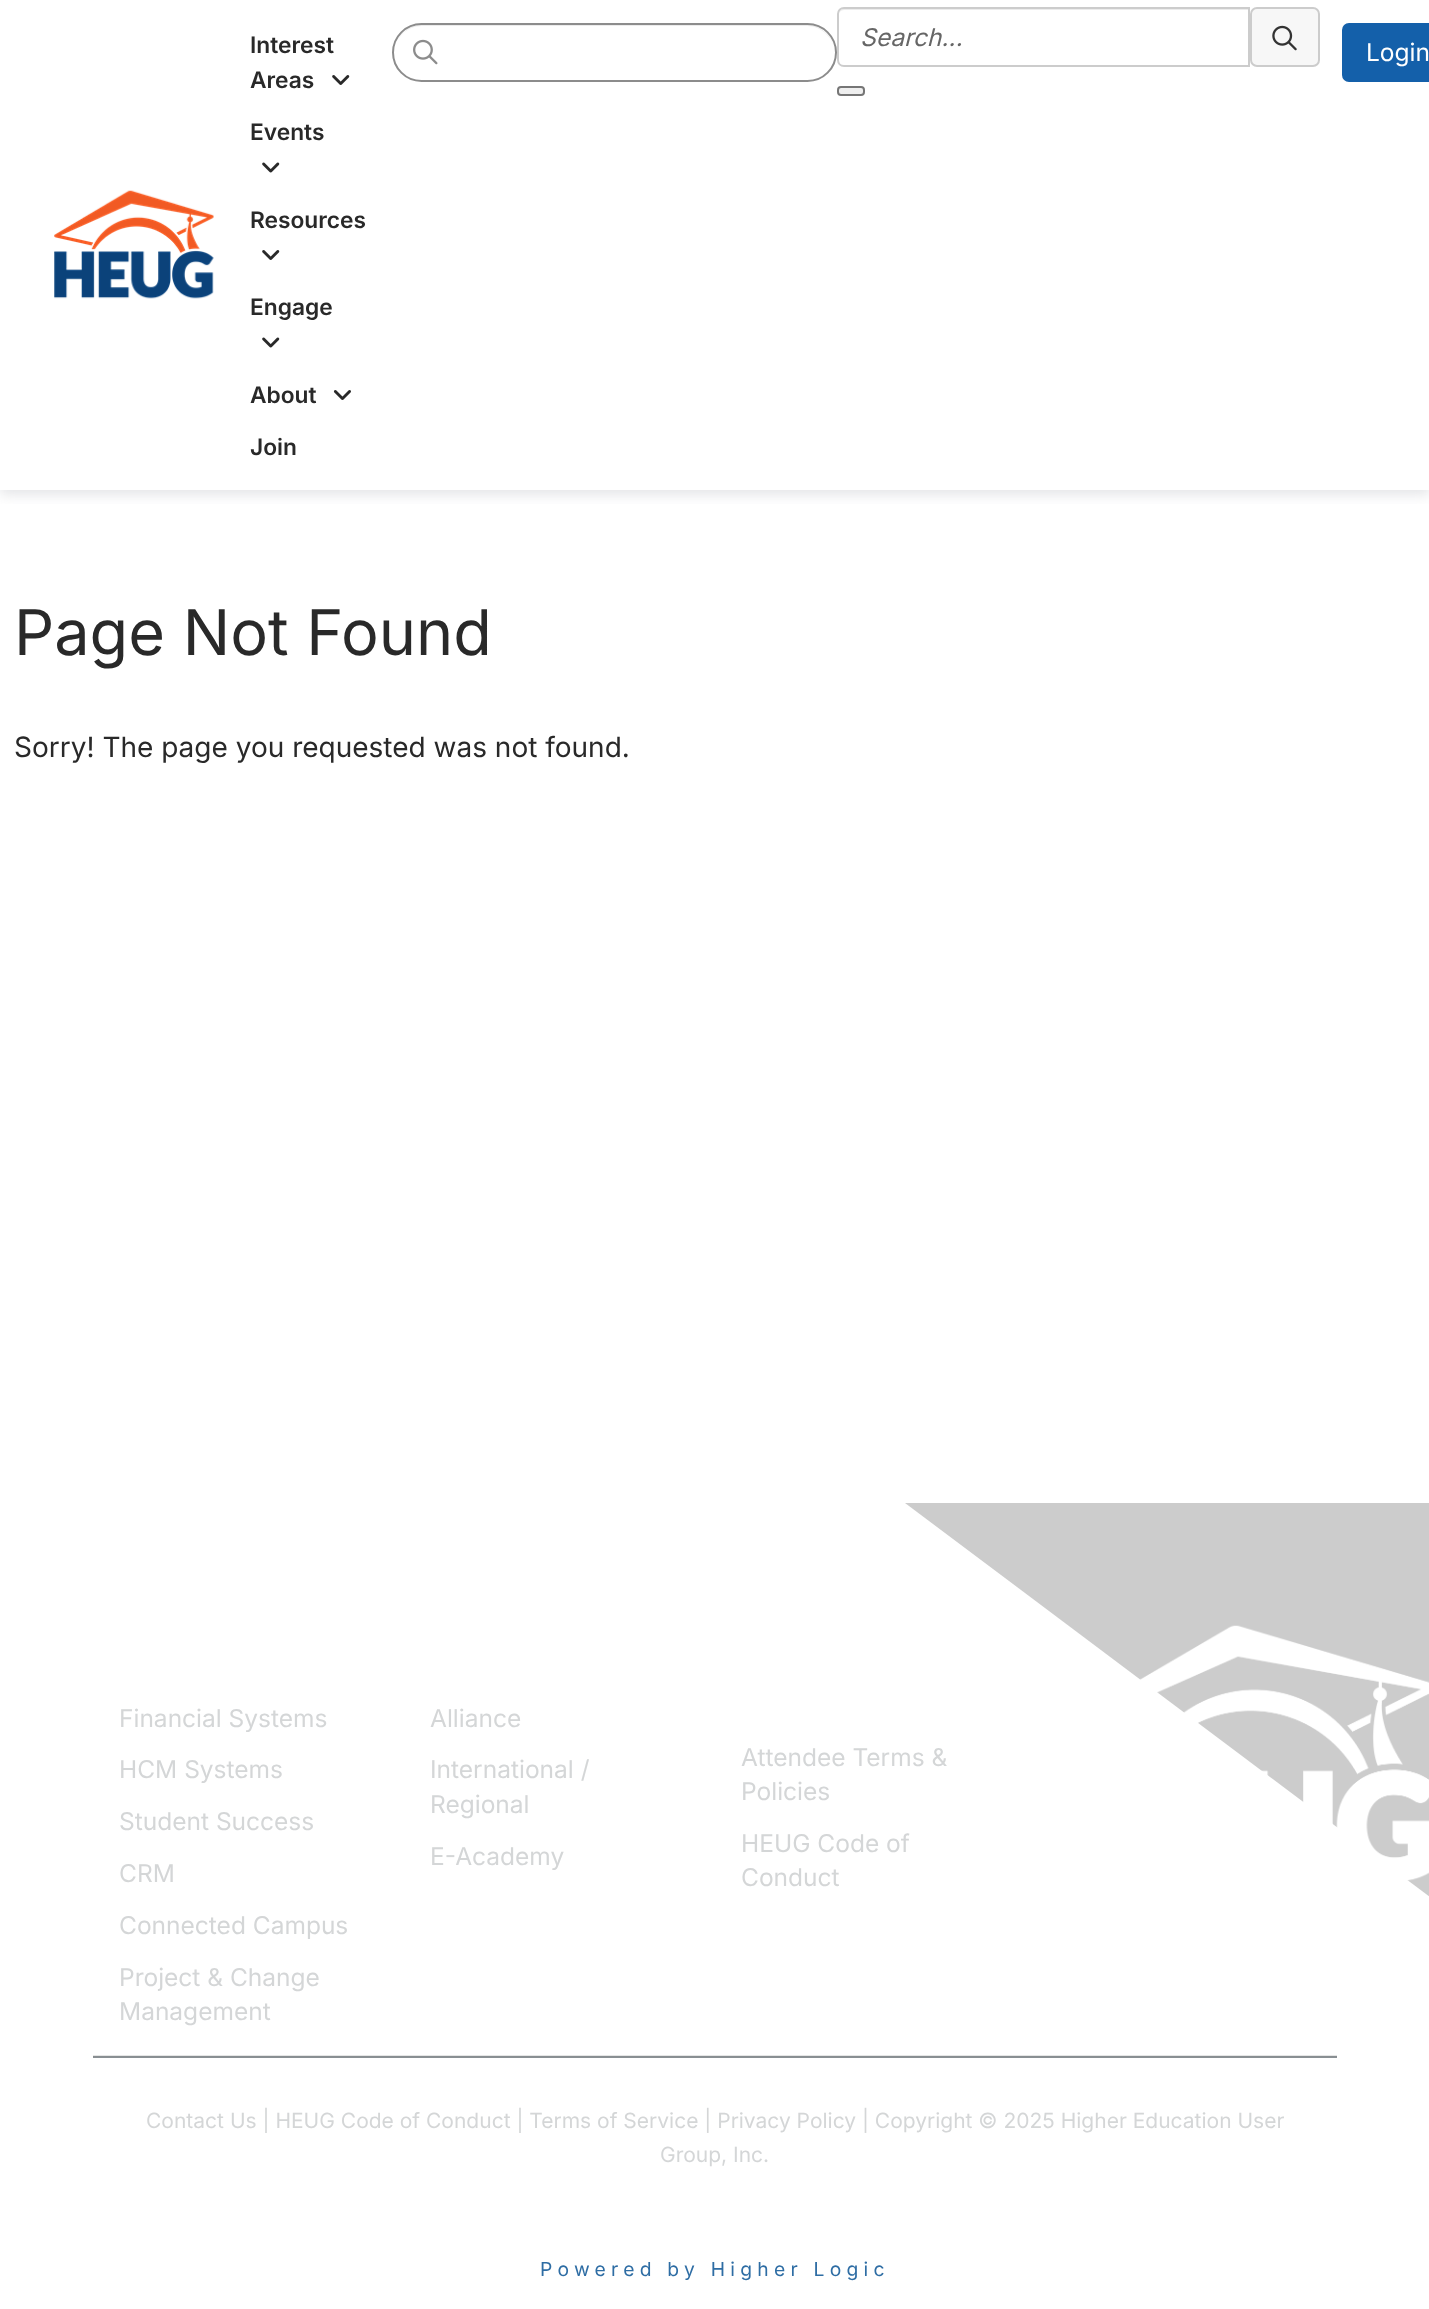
<?xml version="1.0" encoding="UTF-8"?>
<svg xmlns="http://www.w3.org/2000/svg" xmlns:xlink="http://www.w3.org/1999/xlink" width="1429" height="2309">
  <defs>
    <clipPath id="clip1"><rect x="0" y="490" width="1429" height="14" /></clipPath>
  </defs>
  <rect width="100%" height="100%" fill="#ffffff" />
  <rect x="93" y="2057" width="1244" height="1" fill="#8a9094" />
  <g clip-path="url(#clip1)">
    <rect y="4" width="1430" height="490" fill="#838791" fill-opacity="0.24" filter="blur(7px)" />
  </g>
  <image x="54" y="190" width="160" height="109" xlink:href="image1.png" />
  <image x="332" y="75" width="18" height="10" xlink:href="image2.png" />
  <image x="262" y="162" width="18" height="11" xlink:href="image3.png" />
  <image x="262" y="250" width="18" height="10" xlink:href="image2.png" />
  <image x="262" y="337" width="18" height="11" xlink:href="image3.png" />
  <image x="333" y="390" width="18" height="10" xlink:href="image4.png" />
  <path d="M 422 26 h 385 c 15 0 28 13 28 28 c 0 -16 -13 -29 -28 -29 h -385 c -15 0 -28 13 -28 29 c 0 -15 12 -28 28 -28 z" fill="#ececec" />
  <rect x="393" y="24" width="443" height="57" rx="28.5" fill="none" stroke="#8c8c8c" stroke-width="2" />
  <image x="413" y="39" width="25" height="26" xlink:href="image5.png" />
  <path d="M 844 10 h 404 v -1 h -405 c -4 0 -5 4 -5 7 c 0 -3 3 -6 6 -6 z" fill="#ececec" />
  <path d="M 844 8 h 405 v 58 h -405 c -3.5 0 -6 -2.5 -6 -6 v -46 c 0 -3.5 2.5 -6 6 -6 z" fill="none" stroke="#cccccc" stroke-width="2" />
  <rect x="1251" y="8" width="68" height="58" rx="6" fill="#f7f7f7" stroke="#cccccc" stroke-width="2" />
  <image x="1272" y="25" width="25" height="26" xlink:href="image6.png" />
  <rect x="838" y="87" width="26" height="8" rx="3" fill="#efefef" stroke="#767676" stroke-width="2" />
  <rect x="1343" y="24" width="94" height="57" rx="6" fill="#1460aa" stroke="#1460aa" stroke-width="2" />
  <path d="M 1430 1503 v 394 l -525 -394 z" fill="#cccccc" />
  <image x="1140" y="1625" width="289" height="256" xlink:href="image7.png" />
  <rect x="93" y="2055" width="1244" height="1" fill="#e6e6e6" />
  <rect x="93" y="2056" width="1244" height="1" fill="#888e91" />
  <text x="250" y="53" style="font-family: Inter; font-size: 22.75px; font-weight: 600; fill: #292929">Interest</text>
  <text x="250" y="88" style="font-family: Inter; font-size: 22.75px; font-weight: 600; fill: #292929">Areas</text>
  <text x="250" y="140" style="font-family: Inter; font-size: 22.75px; font-weight: 600; fill: #292929">Events</text>
  <text x="250" y="228" style="font-family: Inter; font-size: 22.75px; font-weight: 600; fill: #292929">Resources</text>
  <text x="250" y="315" style="font-family: Inter; font-size: 22.75px; font-weight: 600; fill: #292929">Engage</text>
  <text x="250" y="403" style="font-family: Inter; font-size: 22.75px; font-weight: 600; fill: #292929">About</text>
  <text x="250" y="455" style="font-family: Inter; font-size: 22.75px; font-weight: 600; fill: #292929">Join</text>
  <text x="860" y="46" style="font-family: Inter; font-size: 24.5px; font-style: italic; fill: #666666">Search...</text>
  <text x="1366" y="61" style="font-family: Inter; font-size: 24.5px; fill: #ffffff">Login</text>
  <text x="14" y="655" style="font-family: Inter; font-size: 63px; fill: #292929">Page Not Found</text>
  <text x="14" y="757" style="font-family: Inter; font-size: 28px; fill: #292929">Sorry! The page you requested was not found.</text>
  <text x="119" y="1727" style="font-family: Inter; font-size: 24.5px; fill: #d4d6d7">Financial Systems</text>
  <text x="119" y="1778" style="font-family: Inter; font-size: 24.5px; fill: #d4d6d7">HCM Systems</text>
  <text x="119" y="1830" style="font-family: Inter; font-size: 24.5px; fill: #d4d6d7">Student Success</text>
  <text x="119" y="1882" style="font-family: Inter; font-size: 24.5px; fill: #d4d6d7">CRM</text>
  <text x="119" y="1934" style="font-family: Inter; font-size: 24.5px; fill: #d4d6d7">Connected Campus</text>
  <text x="119" y="1986" style="font-family: Inter; font-size: 24.5px; fill: #d4d6d7">Project &amp; Change</text>
  <text x="119" y="2020" style="font-family: Inter; font-size: 24.5px; fill: #d4d6d7">Management</text>
  <text x="430" y="1727" style="font-family: Inter; font-size: 24.5px; fill: #d4d6d7">Alliance</text>
  <text x="430" y="1778" style="font-family: Inter; font-size: 24.5px; fill: #d4d6d7">International /</text>
  <text x="430" y="1813" style="font-family: Inter; font-size: 24.5px; fill: #d4d6d7">Regional</text>
  <text x="430" y="1865" style="font-family: Inter; font-size: 24.5px; fill: #d4d6d7">E-Academy</text>
  <text x="741" y="1766" style="font-family: Inter; font-size: 24.5px; fill: #d4d6d7">Attendee Terms &amp;</text>
  <text x="741" y="1800" style="font-family: Inter; font-size: 24.5px; fill: #d4d6d7">Policies</text>
  <text x="741" y="1852" style="font-family: Inter; font-size: 24.5px; fill: #d4d6d7">HEUG Code of</text>
  <text x="741" y="1886" style="font-family: Inter; font-size: 24.5px; fill: #d4d6d7">Conduct</text>
  <text x="146" y="2128" style="font-family: Inter; font-size: 21px; fill: #d4d6d7">Contact Us | HEUG Code of Conduct | Terms of Service | Privacy Policy | Copyright © 2025 Higher Education User</text>
  <text x="660" y="2162" style="font-family: Inter; font-size: 21px; fill: #d4d6d7">Group, Inc.</text>
  <text x="540" y="2276" style="font-family: Inter; font-size: 19.25px; letter-spacing: 5.25px; fill: #2e6da4">Powered by Higher Logic</text>
</svg>
